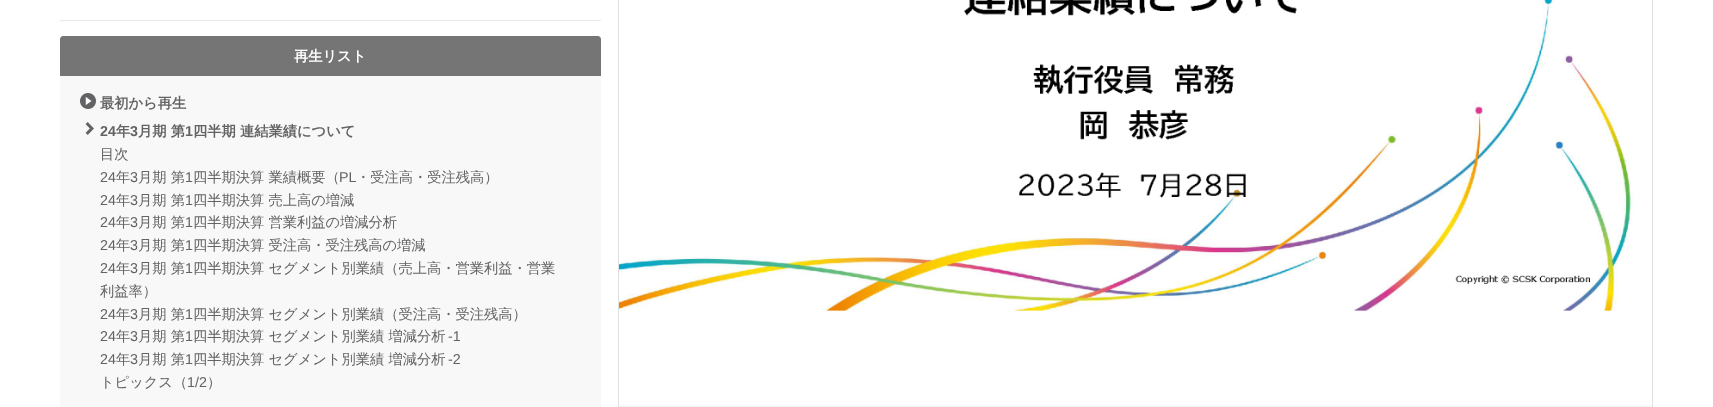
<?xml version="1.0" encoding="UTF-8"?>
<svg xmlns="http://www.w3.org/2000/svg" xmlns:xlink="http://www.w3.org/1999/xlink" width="1713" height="407">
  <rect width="100%" height="100%" fill="#ffffff" />
  <rect x="60" y="20" width="541" height="1" fill="#e8e8e8" />
  <path d="M 63 36 h 535 c 1.5 0 3 1.5 3 3 v 37 h -541 v -37 c 0 -1.5 1.5 -3 3 -3 z" fill="#757575" />
  <rect x="60" y="76" width="541" height="331" fill="#f8f8f8" />
  <image x="80" y="93" width="16" height="16" xlink:href="image1.png" />
  <image x="85" y="122" width="9" height="13" xlink:href="image2.png" />
  <rect x="618.5" y="-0.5" width="1034" height="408" fill="none" stroke="#e0e0e0" />
  <image x="619" y="0" width="1016" height="311" xlink:href="image3.png" />
  <rect x="619" y="406" width="1033" height="1" fill="#f3f3f3" />
  <text x="294" y="61" style="font-family: WenQuanYi Zen Hei; font-size: 14.25px; font-weight: bold; fill: #ffffff">再生リスト</text>
  <text x="100" y="108" style="font-family: WenQuanYi Zen Hei; font-size: 14.25px; font-weight: bold; fill: #636365">最初から再生</text>
  <text x="100" y="136" style="font-family: Liberation Sans; font-size: 14.25px; font-weight: bold; fill: #636365">24</text>
  <text x="116" y="136" style="font-family: WenQuanYi Zen Hei; font-size: 14.25px; font-weight: bold; fill: #636365">年</text>
  <text x="130" y="136" style="font-family: Liberation Sans; font-size: 14.25px; font-weight: bold; fill: #636365">3</text>
  <text x="138" y="136" style="font-family: WenQuanYi Zen Hei; font-size: 14.25px; font-weight: bold; fill: #636365">月期 第</text>
  <text x="185" y="136" style="font-family: Liberation Sans; font-size: 14.25px; font-weight: bold; fill: #636365">1</text>
  <text x="193" y="136" style="font-family: WenQuanYi Zen Hei; font-size: 14.25px; font-weight: bold; fill: #636365">四半期 連結業績について</text>
  <text x="100" y="159" style="font-family: WenQuanYi Zen Hei; font-size: 14.25px; font-weight: 500; fill: #636365">目次</text>
  <text x="100" y="182" style="font-family: Liberation Sans; font-size: 14.25px; fill: #636365">24</text>
  <text x="116" y="182" style="font-family: WenQuanYi Zen Hei; font-size: 14.25px; font-weight: 500; fill: #636365">年</text>
  <text x="130" y="182" style="font-family: Liberation Sans; font-size: 14.25px; fill: #636365">3</text>
  <text x="138" y="182" style="font-family: WenQuanYi Zen Hei; font-size: 14.25px; font-weight: 500; fill: #636365">月期 第</text>
  <text x="185" y="182" style="font-family: Liberation Sans; font-size: 14.25px; fill: #636365">1</text>
  <text x="193" y="182" style="font-family: WenQuanYi Zen Hei; font-size: 14.25px; font-weight: 500; fill: #636365">四半期決算 業績概要（</text>
  <text x="339" y="182" style="font-family: Liberation Sans; font-size: 14.25px; fill: #636365">PL</text>
  <text x="356" y="182" style="font-family: WenQuanYi Zen Hei; font-size: 14.25px; font-weight: 500; fill: #636365">・受注高・受注残高）</text>
  <text x="100" y="205" style="font-family: Liberation Sans; font-size: 14.25px; fill: #636365">24</text>
  <text x="116" y="205" style="font-family: WenQuanYi Zen Hei; font-size: 14.25px; font-weight: 500; fill: #636365">年</text>
  <text x="130" y="205" style="font-family: Liberation Sans; font-size: 14.25px; fill: #636365">3</text>
  <text x="138" y="205" style="font-family: WenQuanYi Zen Hei; font-size: 14.25px; font-weight: 500; fill: #636365">月期 第</text>
  <text x="185" y="205" style="font-family: Liberation Sans; font-size: 14.25px; fill: #636365">1</text>
  <text x="193" y="205" style="font-family: WenQuanYi Zen Hei; font-size: 14.25px; font-weight: 500; fill: #636365">四半期決算 売上高の増減</text>
  <text x="100" y="227" style="font-family: Liberation Sans; font-size: 14.25px; fill: #636365">24</text>
  <text x="116" y="227" style="font-family: WenQuanYi Zen Hei; font-size: 14.25px; font-weight: 500; fill: #636365">年</text>
  <text x="130" y="227" style="font-family: Liberation Sans; font-size: 14.25px; fill: #636365">3</text>
  <text x="138" y="227" style="font-family: WenQuanYi Zen Hei; font-size: 14.25px; font-weight: 500; fill: #636365">月期 第</text>
  <text x="185" y="227" style="font-family: Liberation Sans; font-size: 14.25px; fill: #636365">1</text>
  <text x="193" y="227" style="font-family: WenQuanYi Zen Hei; font-size: 14.25px; font-weight: 500; fill: #636365">四半期決算 営業利益の増減分析</text>
  <text x="100" y="250" style="font-family: Liberation Sans; font-size: 14.25px; fill: #636365">24</text>
  <text x="116" y="250" style="font-family: WenQuanYi Zen Hei; font-size: 14.25px; font-weight: 500; fill: #636365">年</text>
  <text x="130" y="250" style="font-family: Liberation Sans; font-size: 14.25px; fill: #636365">3</text>
  <text x="138" y="250" style="font-family: WenQuanYi Zen Hei; font-size: 14.25px; font-weight: 500; fill: #636365">月期 第</text>
  <text x="185" y="250" style="font-family: Liberation Sans; font-size: 14.25px; fill: #636365">1</text>
  <text x="193" y="250" style="font-family: WenQuanYi Zen Hei; font-size: 14.25px; font-weight: 500; fill: #636365">四半期決算 受注高・受注残高の増減</text>
  <text x="100" y="273" style="font-family: Liberation Sans; font-size: 14.25px; fill: #636365">24</text>
  <text x="116" y="273" style="font-family: WenQuanYi Zen Hei; font-size: 14.25px; font-weight: 500; fill: #636365">年</text>
  <text x="130" y="273" style="font-family: Liberation Sans; font-size: 14.25px; fill: #636365">3</text>
  <text x="138" y="273" style="font-family: WenQuanYi Zen Hei; font-size: 14.25px; font-weight: 500; fill: #636365">月期 第</text>
  <text x="185" y="273" style="font-family: Liberation Sans; font-size: 14.25px; fill: #636365">1</text>
  <text x="193" y="273" style="font-family: WenQuanYi Zen Hei; font-size: 14.25px; font-weight: 500; fill: #636365">四半期決算 セグメント別業績（売上高・営業利益・営業</text>
  <text x="100" y="296" style="font-family: WenQuanYi Zen Hei; font-size: 14.25px; font-weight: 500; fill: #636365">利益率）</text>
  <text x="100" y="319" style="font-family: Liberation Sans; font-size: 14.25px; fill: #636365">24</text>
  <text x="116" y="319" style="font-family: WenQuanYi Zen Hei; font-size: 14.25px; font-weight: 500; fill: #636365">年</text>
  <text x="130" y="319" style="font-family: Liberation Sans; font-size: 14.25px; fill: #636365">3</text>
  <text x="138" y="319" style="font-family: WenQuanYi Zen Hei; font-size: 14.25px; font-weight: 500; fill: #636365">月期 第</text>
  <text x="185" y="319" style="font-family: Liberation Sans; font-size: 14.25px; fill: #636365">1</text>
  <text x="193" y="319" style="font-family: WenQuanYi Zen Hei; font-size: 14.25px; font-weight: 500; fill: #636365">四半期決算 セグメント別業績（受注高・受注残高）</text>
  <text x="100" y="341" style="font-family: Liberation Sans; font-size: 14.25px; fill: #636365">24</text>
  <text x="116" y="341" style="font-family: WenQuanYi Zen Hei; font-size: 14.25px; font-weight: 500; fill: #636365">年</text>
  <text x="130" y="341" style="font-family: Liberation Sans; font-size: 14.25px; fill: #636365">3</text>
  <text x="138" y="341" style="font-family: WenQuanYi Zen Hei; font-size: 14.25px; font-weight: 500; fill: #636365">月期 第</text>
  <text x="185" y="341" style="font-family: Liberation Sans; font-size: 14.25px; fill: #636365">1</text>
  <text x="193" y="341" style="font-family: WenQuanYi Zen Hei; font-size: 14.25px; font-weight: 500; fill: #636365">四半期決算 セグメント別業績 増減分析</text>
  <text x="448" y="341" style="font-family: Liberation Sans; font-size: 14.25px; fill: #636365">-1</text>
  <text x="100" y="364" style="font-family: Liberation Sans; font-size: 14.25px; fill: #636365">24</text>
  <text x="116" y="364" style="font-family: WenQuanYi Zen Hei; font-size: 14.25px; font-weight: 500; fill: #636365">年</text>
  <text x="130" y="364" style="font-family: Liberation Sans; font-size: 14.25px; fill: #636365">3</text>
  <text x="138" y="364" style="font-family: WenQuanYi Zen Hei; font-size: 14.25px; font-weight: 500; fill: #636365">月期 第</text>
  <text x="185" y="364" style="font-family: Liberation Sans; font-size: 14.25px; fill: #636365">1</text>
  <text x="193" y="364" style="font-family: WenQuanYi Zen Hei; font-size: 14.25px; font-weight: 500; fill: #636365">四半期決算 セグメント別業績 増減分析</text>
  <text x="448" y="364" style="font-family: Liberation Sans; font-size: 14.25px; fill: #636365">-2</text>
  <text x="100" y="387" style="font-family: WenQuanYi Zen Hei; font-size: 14.25px; font-weight: 500; fill: #636365">トピックス（</text>
  <text x="187" y="387" style="font-family: Liberation Sans; font-size: 14.25px; fill: #636365">1/2</text>
  <text x="207" y="387" style="font-family: WenQuanYi Zen Hei; font-size: 14.25px; font-weight: 500; fill: #636365">）</text>
</svg>
